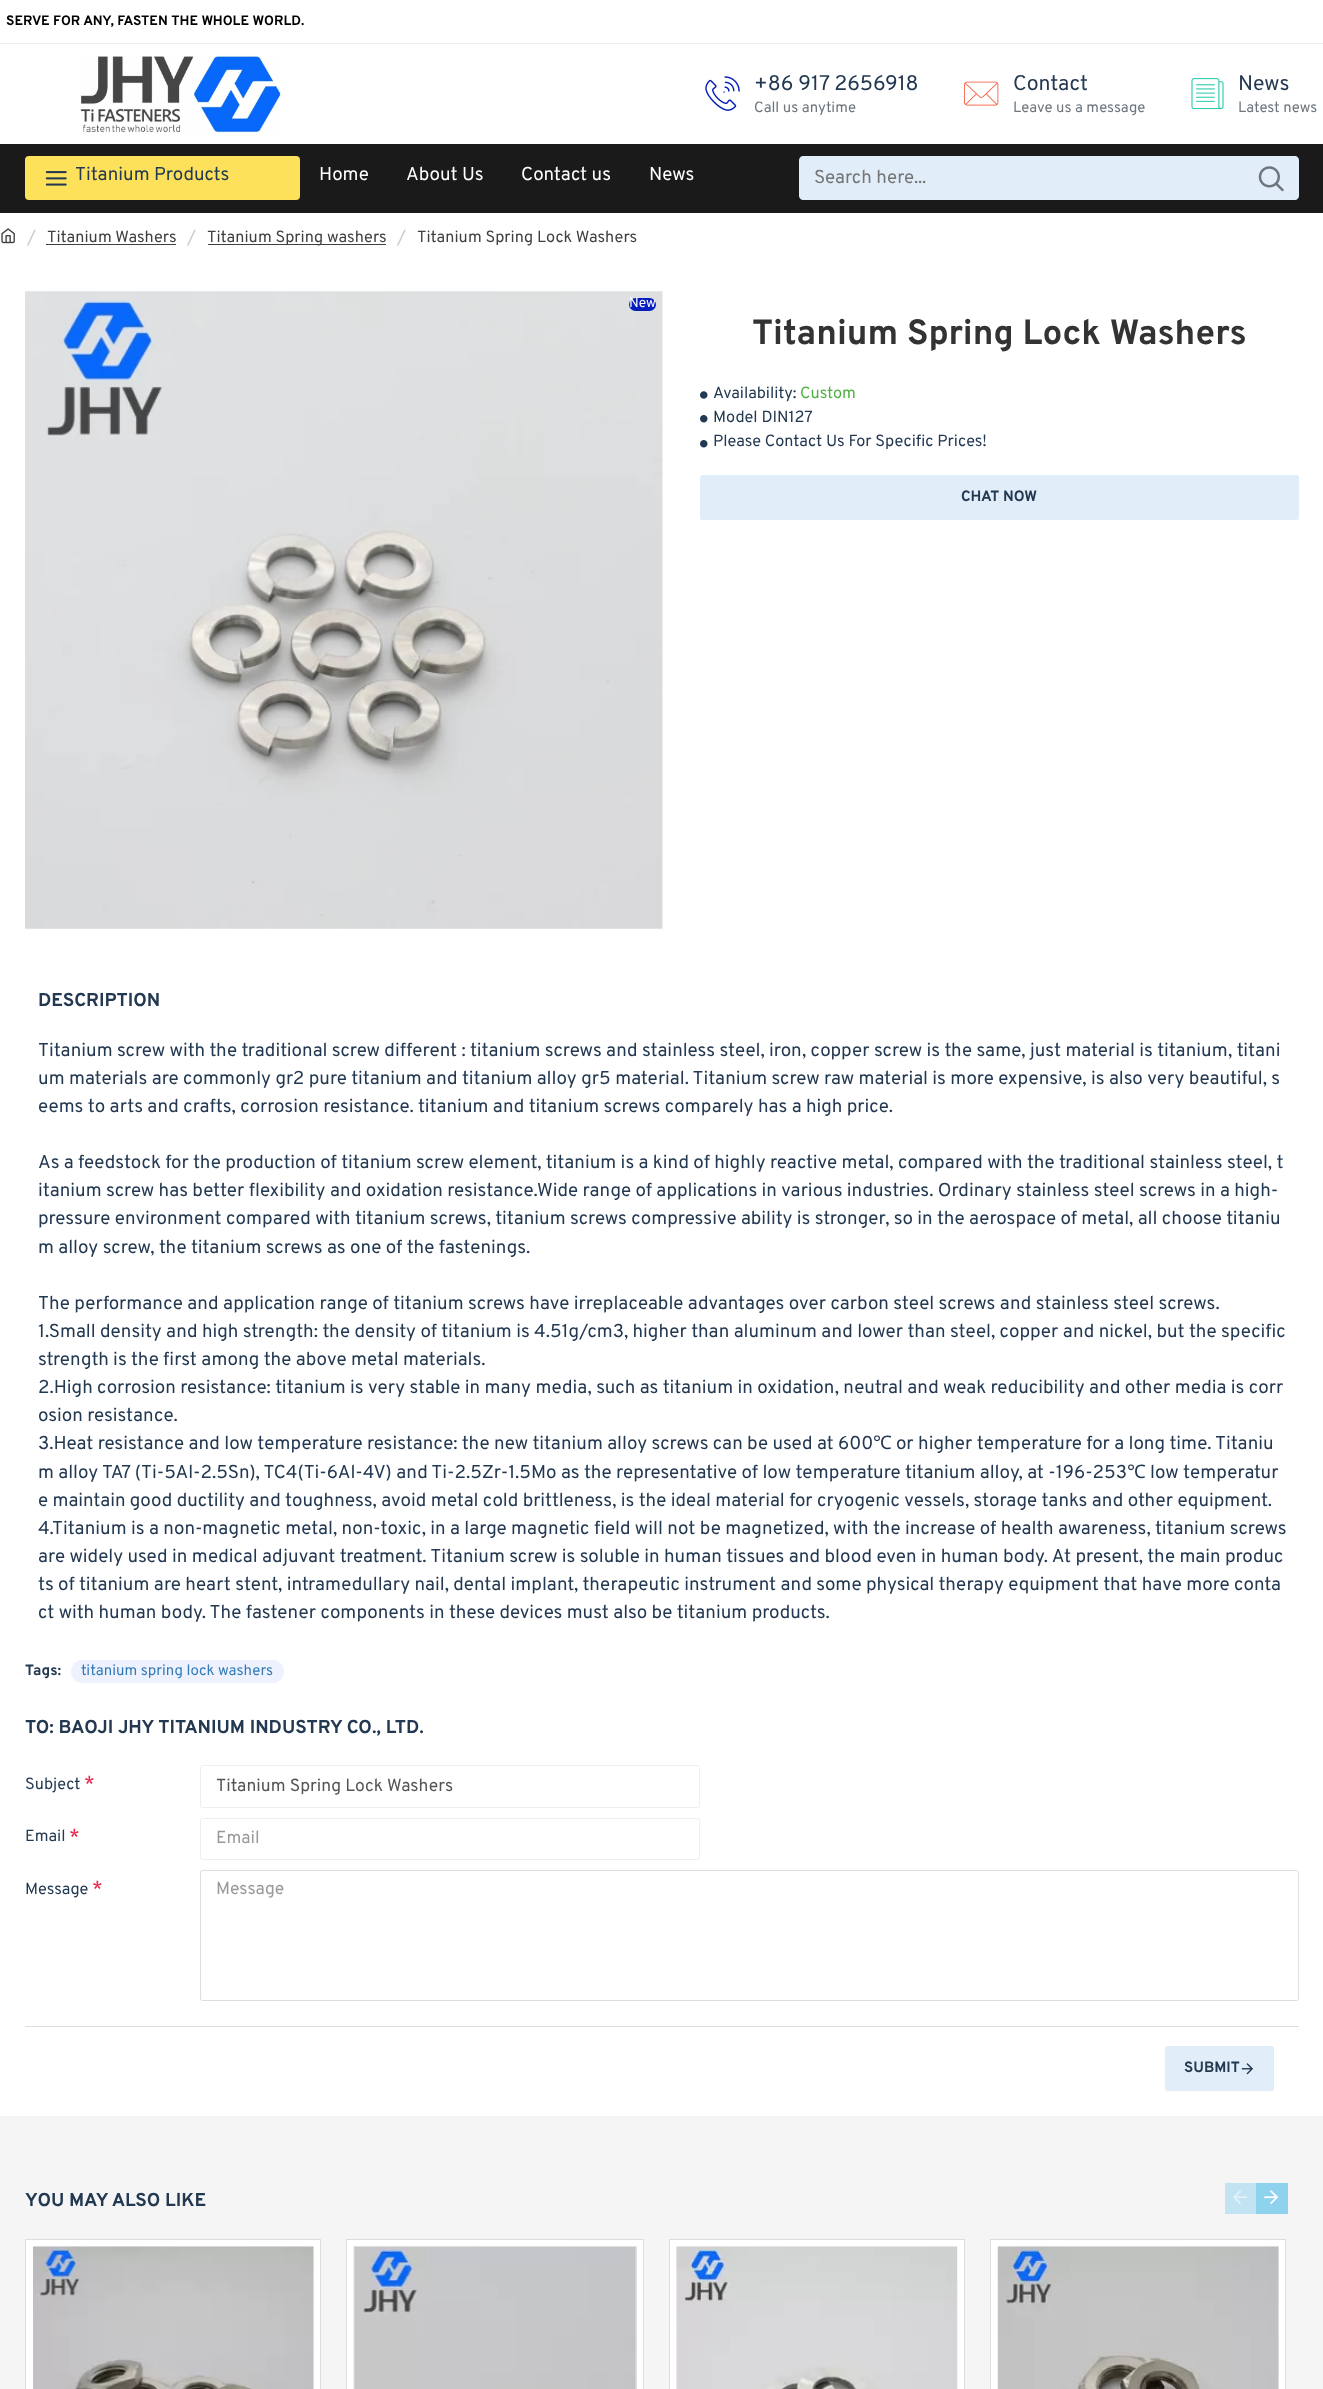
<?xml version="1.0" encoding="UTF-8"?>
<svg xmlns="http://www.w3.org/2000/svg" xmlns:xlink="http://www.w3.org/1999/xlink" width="1323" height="2389">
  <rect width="100%" height="100%" fill="#ffffff" />
  <image x="80" y="55" width="201" height="78" xlink:href="image1.png" />
  <image x="705" y="76" width="35" height="35" xlink:href="image2.png" />
  <image x="964" y="81" width="35" height="25" xlink:href="image3.png" />
  <image x="1191" y="78" width="33" height="32" xlink:href="image4.png" />
  <rect y="144" width="1323" height="69" fill="#1a1a1a" />
  <rect x="25" y="156" width="275" height="44" rx="4" fill="#fee15b" />
  <image x="45" y="171" width="22" height="15" xlink:href="image5.png" />
  <path d="M 803 156 h 440 v 44 h -440 c -2 0 -4 -2 -4 -4 v -36 c 0 -2 2 -4 4 -4 z" fill="#e1eefa" />
  <path d="M 1243 156 h 52 c 2 0 4 2 4 4 v 36 c 0 2 -2 4 -4 4 h -52 z" fill="#e1eefa" />
  <image x="1258" y="166" width="26" height="26" xlink:href="image6.png" />
  <rect y="43" width="1323" height="1" fill="#eeeeee" />
  <image x="1" y="228" width="14" height="16" xlink:href="image7.png" />
  <rect x="46" y="244" width="130" height="1" fill="#404040" />
  <rect x="208" y="244" width="178" height="1" fill="#404040" />
  <image x="25" y="291" width="638" height="638" xlink:href="image8.png" />
  <rect x="629" y="298" width="27" height="13" rx="6.5" fill="#061ebb" />
  <image x="700" y="391" width="8" height="8" xlink:href="image9.png" />
  <image x="700" y="415" width="8" height="8" xlink:href="image10.png" />
  <image x="700" y="440" width="8" height="8" xlink:href="image10.png" />
  <rect x="700" y="475" width="599" height="45" rx="2.5" fill="#e1eefa" />
  <rect x="71" y="1660" width="213" height="23" rx="11.5" fill="#edf2fe" />
  <rect x="200.5" y="1765.5" width="499" height="42" rx="2" fill="none" stroke="#eeeeee" />
  <rect x="200.5" y="1818.5" width="499" height="41" rx="2" fill="none" stroke="#eeeeee" />
  <rect x="200.5" y="1870.5" width="1098" height="130" rx="2" fill="none" stroke="#dddddd" />
  <rect x="25" y="2026" width="1274" height="1" fill="#dddddd" />
  <rect x="1165" y="2046" width="109" height="45" rx="2.5" fill="#e1eefa" />
  <image x="1241" y="2063" width="12" height="12" xlink:href="image11.png" />
  <rect y="2116" width="1323" height="273" fill="#f5f5f5" />
  <rect x="1225" y="2183" width="31" height="31" fill="#c2e4f2" />
  <image x="1233" y="2190" width="14" height="14" xlink:href="image12.png" />
  <rect x="1256" y="2183" width="32" height="31" fill="#8fd2ee" />
  <image x="1264" y="2190" width="15" height="15" xlink:href="image13.png" />
  <rect x="25.5" y="2239.5" width="295" height="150" fill="#ffffff" stroke="#dddddd" />
  <image x="33" y="2246" width="281" height="143" xlink:href="image14.png" />
  <rect x="346.5" y="2239.5" width="297" height="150" fill="#ffffff" stroke="#dddddd" />
  <image x="353" y="2246" width="284" height="143" xlink:href="image15.png" />
  <rect x="669.5" y="2239.5" width="295" height="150" fill="#ffffff" stroke="#dddddd" />
  <image x="676" y="2246" width="282" height="143" xlink:href="image16.png" />
  <rect x="990.5" y="2239.5" width="295" height="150" fill="#ffffff" stroke="#dddddd" />
  <image x="997" y="2246" width="282" height="143" xlink:href="image17.png" />
  <text x="6" y="25" style="font-family: Overpass; font-size: 13.75px; font-weight: bold; fill: #000000">SERVE FOR ANY, FASTEN THE WHOLE WORLD.</text>
  <text x="754" y="90" style="font-family: Overpass; font-size: 21.25px; fill: #233851">+86 917 2656918</text>
  <text x="754" y="112" style="font-family: Overpass; font-size: 14.9px; fill: #6d767d">Call us anytime</text>
  <text x="1013" y="90" style="font-family: Overpass; font-size: 21.25px; fill: #233851">Contact</text>
  <text x="1013" y="112" style="font-family: Overpass; font-size: 14.9px; fill: #6d767d">Leave us a message</text>
  <text x="1238" y="90" style="font-family: Overpass; font-size: 21.25px; fill: #233851">News</text>
  <text x="1238" y="112" style="font-family: Overpass; font-size: 14.9px; fill: #6d767d">Latest news</text>
  <text x="75" y="180" style="font-family: Overpass; font-size: 18.75px; fill: #233851">Titanium Products</text>
  <text x="319" y="180" style="font-family: Overpass; font-size: 18.75px; fill: #ffffff">Home</text>
  <text x="406" y="180" style="font-family: Overpass; font-size: 18.75px; fill: #ffffff">About Us</text>
  <text x="521" y="180" style="font-family: Overpass; font-size: 18.75px; fill: #ffffff">Contact us</text>
  <text x="649" y="180" style="font-family: Overpass; font-size: 18.75px; fill: #ffffff">News</text>
  <text x="814" y="183" style="font-family: Overpass; font-size: 18.75px; fill: #757575">Search here...</text>
  <text x="27" y="243" style="font-family: Overpass; font-size: 18.75px; fill: #cccccc">/</text>
  <text x="47" y="242" style="font-family: Overpass; font-size: 16.25px; fill: #404040">Titanium Washers</text>
  <text x="187" y="243" style="font-family: Overpass; font-size: 18.75px; fill: #cccccc">/</text>
  <text x="207" y="242" style="font-family: Overpass; font-size: 16.25px; fill: #404040">Titanium Spring washers</text>
  <text x="397" y="243" style="font-family: Overpass; font-size: 18.75px; fill: #cccccc">/</text>
  <text x="417" y="242" style="font-family: Overpass; font-size: 16.25px; fill: #404040">Titanium Spring Lock Washers</text>
  <text x="629" y="307" style="font-family: Overpass; font-size: 13.75px; fill: #ffffff">New</text>
  <text x="752" y="344" style="font-family: Overpass; font-size: 35px; font-weight: bold; fill: #333333">Titanium Spring Lock Washers</text>
  <text x="713" y="398" style="font-family: Overpass; font-size: 16.25px; fill: #233851">Availability:</text>
  <text x="800" y="398" style="font-family: Overpass; font-size: 16.25px; fill: #4eb142">Custom</text>
  <text x="713" y="422" style="font-family: Overpass; font-size: 16.25px; fill: #233851">Model DIN127</text>
  <text x="713" y="446" style="font-family: Overpass; font-size: 16.25px; fill: #233851">Please Contact Us For Specific Prices!</text>
  <text x="961" y="501" style="font-family: Overpass; font-size: 15px; font-weight: bold; fill: #233851">CHAT NOW</text>
  <text x="38" y="1006" style="font-family: Overpass; font-size: 18.75px; font-weight: bold; fill: #233851">DESCRIPTION</text>
  <text x="38" y="1056" style="font-family: Overpass; font-size: 18.75px; fill: #233851">Titanium screw with the traditional screw different : titanium screws and stainless steel, iron, copper screw is the same, just material is titanium, titani</text>
  <text x="38" y="1084" style="font-family: Overpass; font-size: 18.75px; fill: #233851">um materials are commonly gr2 pure titanium and titanium alloy gr5 material. Titanium screw raw material is more expensive, is also very beautiful, s</text>
  <text x="38" y="1112" style="font-family: Overpass; font-size: 18.75px; fill: #233851">eems to arts and crafts, corrosion resistance. titanium and titanium screws comparely has a high price.</text>
  <text x="38" y="1168" style="font-family: Overpass; font-size: 18.75px; fill: #233851">As a feedstock for the production of titanium screw element, titanium is a kind of highly reactive metal, compared with the traditional stainless steel, t</text>
  <text x="38" y="1196" style="font-family: Overpass; font-size: 18.75px; fill: #233851">itanium screw has better flexibility and oxidation resistance.Wide range of applications in various industries. Ordinary stainless steel screws in a high-</text>
  <text x="38" y="1224" style="font-family: Overpass; font-size: 18.75px; fill: #233851">pressure environment compared with titanium screws, titanium screws compressive ability is stronger, so in the aerospace of metal, all choose titaniu</text>
  <text x="38" y="1253" style="font-family: Overpass; font-size: 18.75px; fill: #233851">m alloy screw, the titanium screws as one of the fastenings.</text>
  <text x="38" y="1309" style="font-family: Overpass; font-size: 18.75px; fill: #233851">The performance and application range of titanium screws have irreplaceable advantages over carbon steel screws and stainless steel screws.</text>
  <text x="38" y="1337" style="font-family: Overpass; font-size: 18.75px; fill: #233851">1.Small density and high strength: the density of titanium is 4.51g/cm3, higher than aluminum and lower than steel, copper and nickel, but the specific</text>
  <text x="38" y="1365" style="font-family: Overpass; font-size: 18.75px; fill: #233851">strength is the first among the above metal materials.</text>
  <text x="38" y="1393" style="font-family: Overpass; font-size: 18.75px; fill: #233851">2.High corrosion resistance: titanium is very stable in many media, such as titanium in oxidation, neutral and weak reducibility and other media is corr</text>
  <text x="38" y="1421" style="font-family: Overpass; font-size: 18.75px; fill: #233851">osion resistance.</text>
  <text x="38" y="1449" style="font-family: Overpass; font-size: 18.75px; fill: #233851">3.Heat resistance and low temperature resistance: the new titanium alloy screws can be used at 600</text>
  <text x="873" y="1449" style="font-family: Noto Sans; font-size: 18.75px; fill: #233851">℃</text>
  <text x="896" y="1449" style="font-family: Overpass; font-size: 18.75px; fill: #233851">or higher temperature for a long time. Titaniu</text>
  <text x="38" y="1478" style="font-family: Overpass; font-size: 18.75px; fill: #233851">m alloy TA7 (Ti-5Al-2.5Sn), TC4(Ti-6Al-4V) and Ti-2.5Zr-1.5Mo as the representative of low temperature titanium alloy, at -196-253</text>
  <text x="1127" y="1478" style="font-family: Noto Sans; font-size: 18.75px; fill: #233851">℃</text>
  <text x="1150" y="1478" style="font-family: Overpass; font-size: 18.75px; fill: #233851">low temperatur</text>
  <text x="38" y="1506" style="font-family: Overpass; font-size: 18.75px; fill: #233851">e maintain good ductility and toughness, avoid metal cold brittleness, is the ideal material for cryogenic vessels, storage tanks and other equipment.</text>
  <text x="38" y="1534" style="font-family: Overpass; font-size: 18.75px; fill: #233851">4.Titanium is a non-magnetic metal, non-toxic, in a large magnetic field will not be magnetized, with the increase of health awareness, titanium screws</text>
  <text x="38" y="1562" style="font-family: Overpass; font-size: 18.75px; fill: #233851">are widely used in medical adjuvant treatment. Titanium screw is soluble in human tissues and blood even in human body. At present, the main produc</text>
  <text x="38" y="1590" style="font-family: Overpass; font-size: 18.75px; fill: #233851">ts of titanium are heart stent, intramedullary nail, dental implant, therapeutic instrument and some physical therapy equipment that have more conta</text>
  <text x="38" y="1618" style="font-family: Overpass; font-size: 18.75px; fill: #233851">ct with human body. The fastener components in these devices must also be titanium products.</text>
  <text x="25" y="1675" style="font-family: Overpass; font-size: 15px; font-weight: bold; fill: #233851">Tags:</text>
  <text x="81" y="1675" style="font-family: Overpass; font-size: 15px; fill: #337ab7">titanium spring lock washers</text>
  <text x="25" y="1733" style="font-family: Overpass; font-size: 18.75px; font-weight: bold; fill: #233851">TO: BAOJI JHY TITANIUM INDUSTRY CO., LTD.</text>
  <text x="25" y="1789" style="font-family: Overpass; font-size: 16.25px; fill: #233851">Subject</text>
  <text x="84" y="1790" style="font-family: Overpass; font-size: 20px; fill: #e8284d">*</text>
  <text x="216" y="1791" style="font-family: Overpass; font-size: 17.5px; fill: #555555">Titanium Spring Lock Washers</text>
  <text x="25" y="1841" style="font-family: Overpass; font-size: 16.25px; fill: #233851">Email</text>
  <text x="69" y="1843" style="font-family: Overpass; font-size: 20px; fill: #e8284d">*</text>
  <text x="216" y="1843" style="font-family: Overpass; font-size: 17.5px; fill: #999999">Email</text>
  <text x="25" y="1894" style="font-family: Overpass; font-size: 16.25px; fill: #233851">Message</text>
  <text x="92" y="1895" style="font-family: Overpass; font-size: 20px; fill: #e8284d">*</text>
  <text x="216" y="1894" style="font-family: Overpass; font-size: 17.5px; fill: #999999">Message</text>
  <text x="1184" y="2072" style="font-family: Overpass; font-size: 15px; font-weight: bold; fill: #233851">SUBMIT</text>
  <text x="25" y="2206" style="font-family: Overpass; font-size: 18.75px; font-weight: bold; fill: #233851">YOU MAY ALSO LIKE</text>
</svg>
